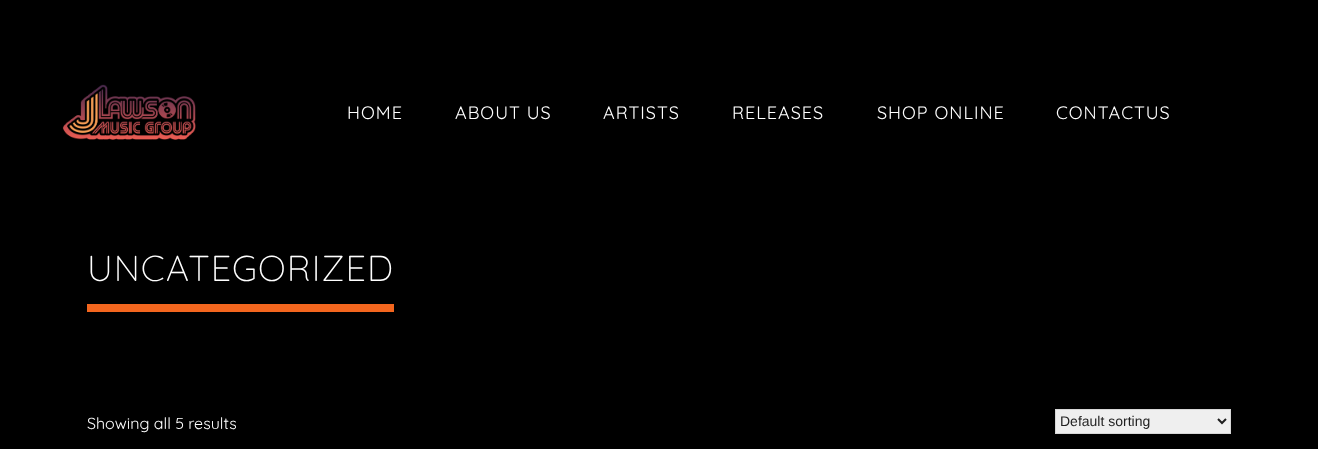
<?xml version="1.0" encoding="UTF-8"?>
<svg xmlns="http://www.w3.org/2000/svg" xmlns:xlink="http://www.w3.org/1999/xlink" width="1318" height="449">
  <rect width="100%" height="100%" fill="#000000" />
  <image x="62" y="84" width="134" height="56" xlink:href="image1.png" />
  <rect x="87" y="304" width="307" height="8" fill="#f3661e" />
  <rect x="1055.5" y="409.5" width="175" height="24" fill="#efefef" stroke="#d7d7d7" />
  <path d="M 1218 419 l 4 4 l 4 -4" fill="none" stroke="#1f1f1f" stroke-width="2" />
  <text x="347" y="119" style="font-family: Quicksand; font-size: 18px; font-weight: 300; letter-spacing: 1px; fill: #ffffff">HOME</text>
  <text x="455" y="119" style="font-family: Quicksand; font-size: 18px; font-weight: 300; letter-spacing: 1px; fill: #ffffff">ABOUT US</text>
  <text x="603" y="119" style="font-family: Quicksand; font-size: 18px; font-weight: 300; letter-spacing: 1px; fill: #ffffff">ARTISTS</text>
  <text x="732" y="119" style="font-family: Quicksand; font-size: 18px; font-weight: 300; letter-spacing: 1px; fill: #ffffff">RELEASES</text>
  <text x="877" y="119" style="font-family: Quicksand; font-size: 18px; font-weight: 300; letter-spacing: 1px; fill: #ffffff">SHOP ONLINE</text>
  <text x="1056" y="119" style="font-family: Quicksand; font-size: 18px; font-weight: 300; letter-spacing: 1px; fill: #ffffff">CONTACTUS</text>
  <text x="87" y="281" style="font-family: 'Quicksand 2'; font-size: 36px; font-weight: 300; letter-spacing: 1px; fill: #ffffff">UNCATEGORIZED</text>
  <text x="87" y="429" style="font-family: Quicksand; font-size: 16px; font-weight: 300; fill: #ffffff">Showing all 5 results</text>
  <text x="1060" y="426" style="font-family: Liberation Sans; font-size: 14px; fill: #1f1f1f">Default sorting</text>
</svg>
